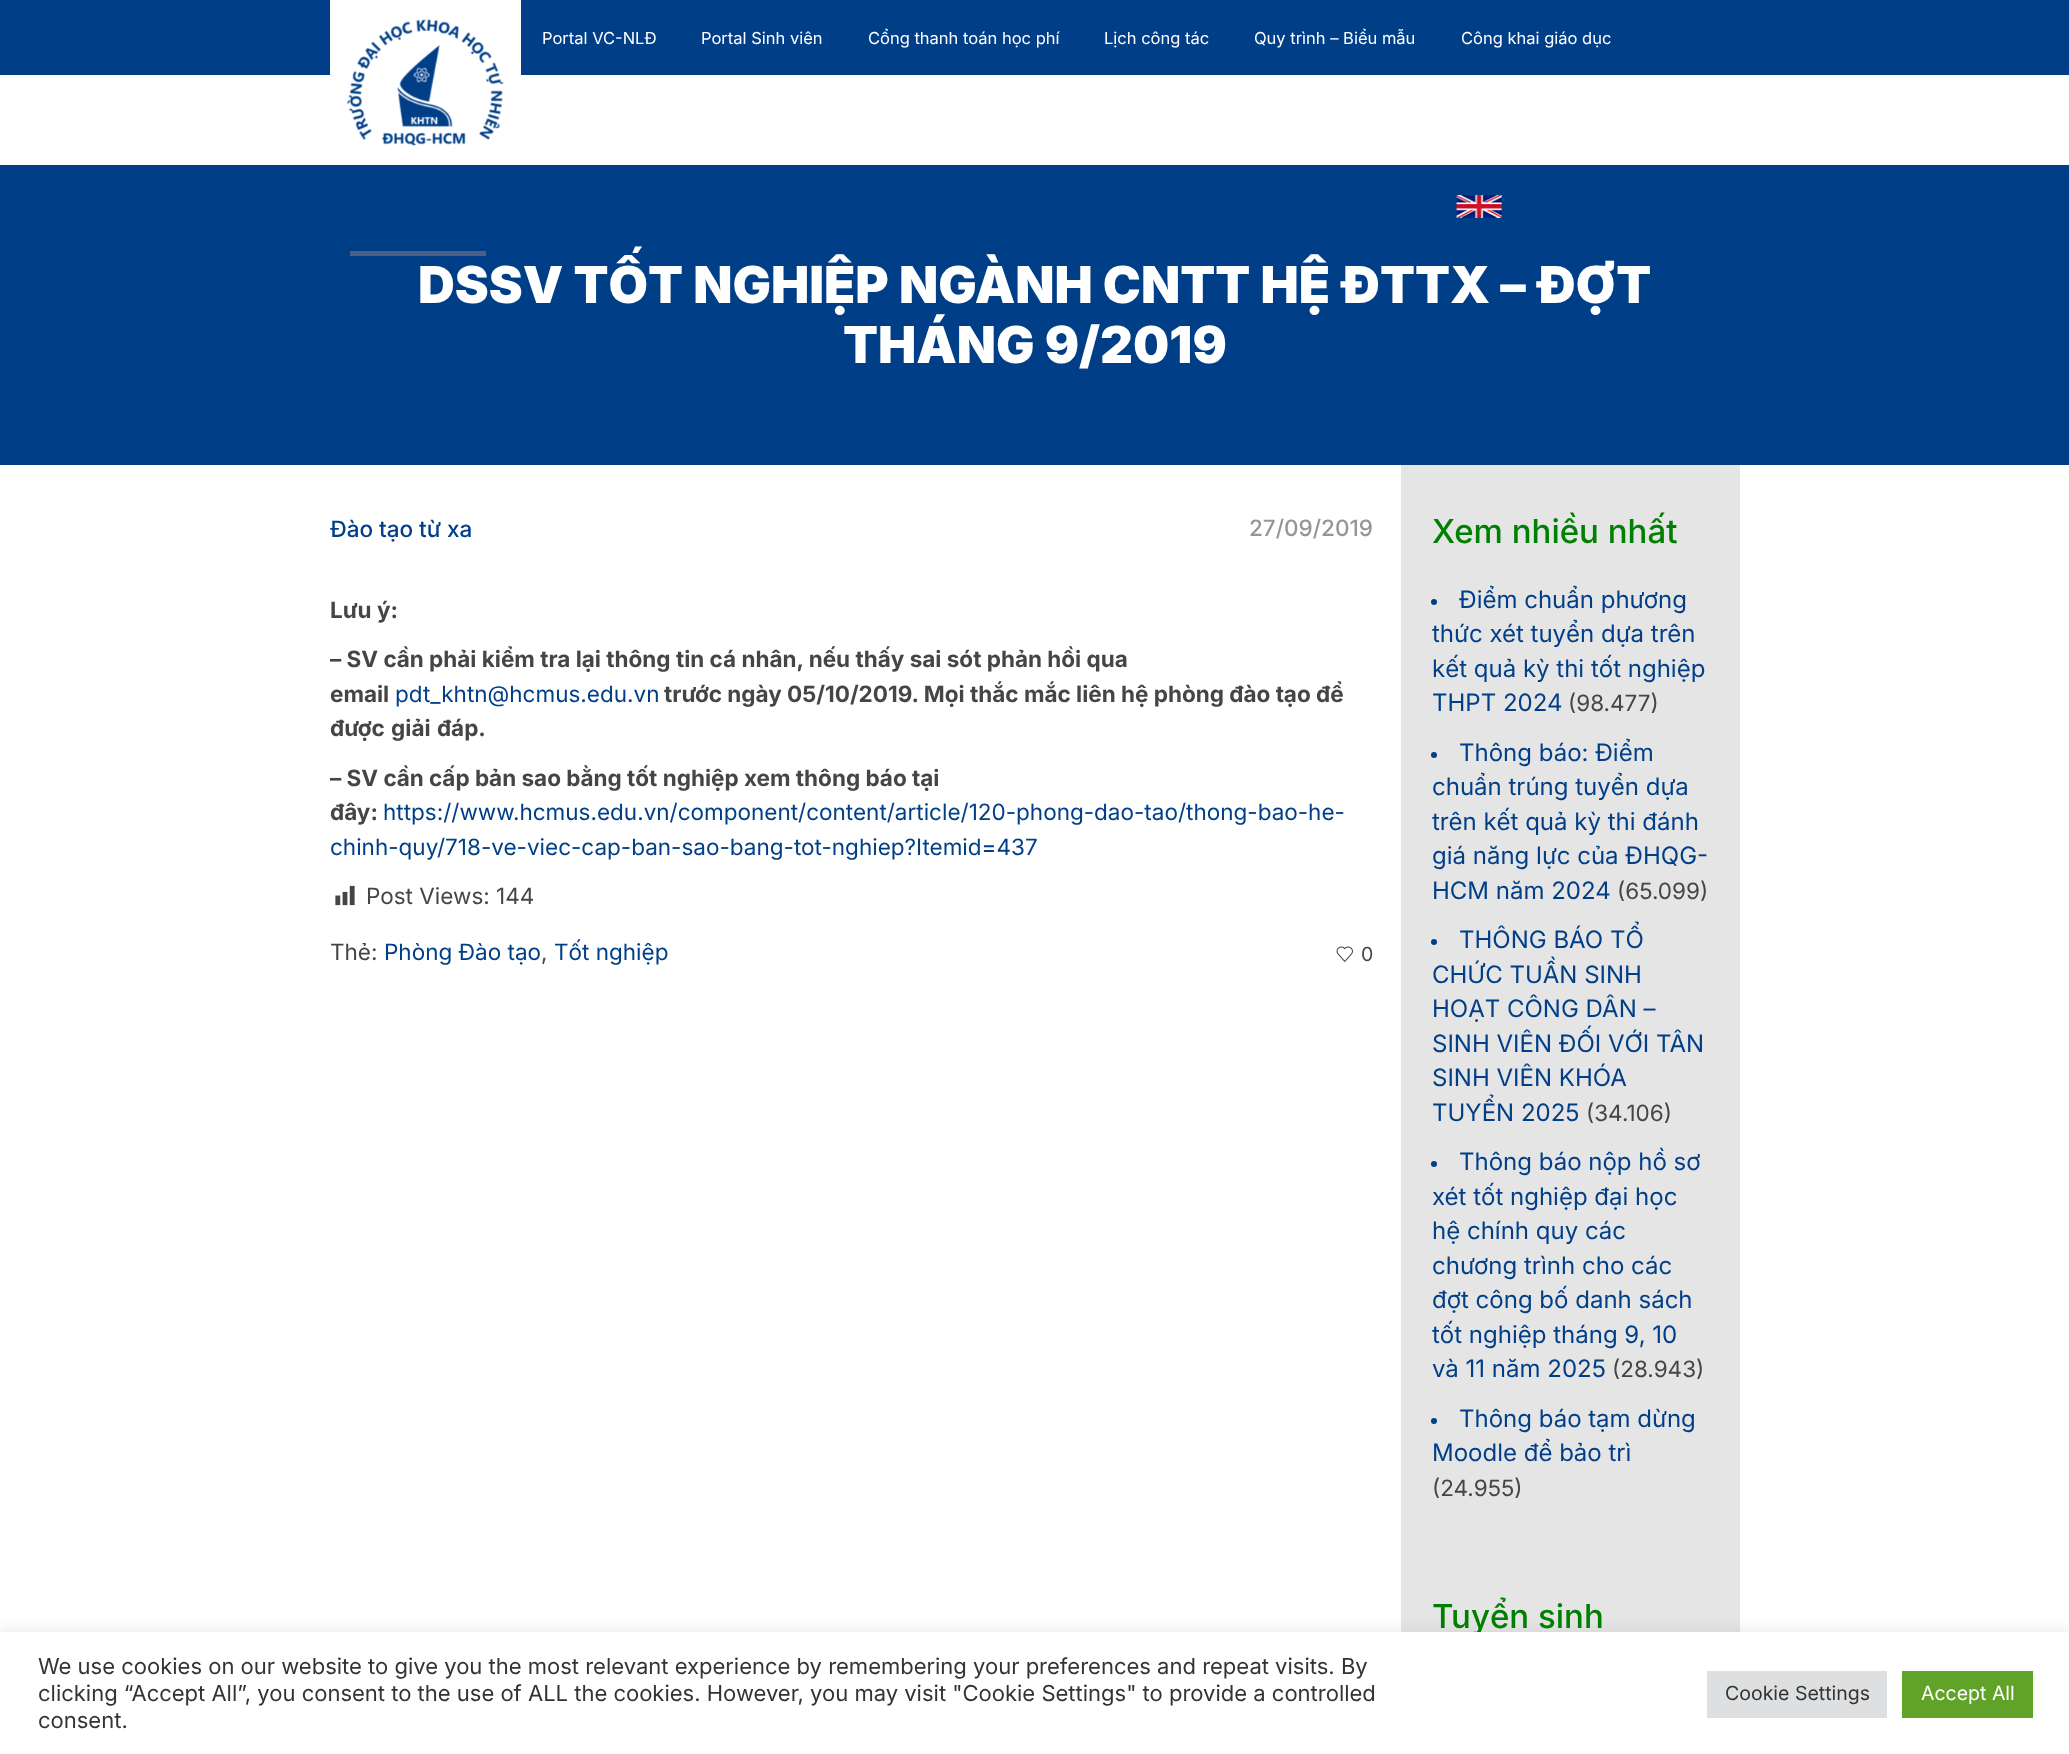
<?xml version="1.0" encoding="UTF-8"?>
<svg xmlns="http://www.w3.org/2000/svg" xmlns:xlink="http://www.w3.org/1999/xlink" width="2069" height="1754">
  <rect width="100%" height="100%" fill="#ffffff" />
  <rect width="2069" height="75" fill="#003f88" />
  <rect x="330" width="191" height="75" fill="#ffffff" />
  <image x="346" y="19" width="158" height="127" xlink:href="image1.png" />
  <rect y="165" width="2069" height="300" fill="#003f88" />
  <image x="1456" y="195" width="46" height="23" xlink:href="image2.png" />
  <image x="335" y="885" width="20" height="21" xlink:href="image3.png" />
  <image x="1336" y="946" width="17" height="16" xlink:href="image4.png" />
  <rect x="1401" y="465" width="339" height="1167" fill="#e5e5e5" />
  <circle cx="1434" cy="602" r="3" fill="#003f88" />
  <circle cx="1434" cy="755" r="3" fill="#003f88" />
  <circle cx="1434" cy="942" r="3" fill="#003f88" />
  <circle cx="1434" cy="1164" r="3" fill="#003f88" />
  <circle cx="1434" cy="1421" r="3" fill="#003f88" />
  <rect y="1631" width="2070" height="123" fill="#acabab" fill-opacity="0.3" filter="blur(7.5px)" />
  <text x="542" y="44" style="font-family: Inter; font-size: 16.5px; fill: #ffffff">Portal VC-NLĐ</text>
  <text x="701" y="44" style="font-family: Inter; font-size: 16.5px; fill: #ffffff">Portal Sinh viên</text>
  <text x="868" y="44" style="font-family: Inter; font-size: 16.5px; fill: #ffffff">Cổng thanh toán học phí</text>
  <text x="1104" y="44" style="font-family: Inter; font-size: 16.5px; fill: #ffffff">Lịch công tác</text>
  <text x="1254" y="44" style="font-family: Inter; font-size: 16.5px; fill: #ffffff">Quy trình – Biểu mẫu</text>
  <text x="1461" y="44" style="font-family: Inter; font-size: 16.5px; fill: #ffffff">Công khai giáo dục</text>
  <text x="418" y="303" style="font-family: Inter; font-size: 51px; font-weight: 900; fill: #ffffff">DSSV TỐT NGHIỆP NGÀNH CNTT HỆ ĐTTX – ĐỢT</text>
  <rect x="350" y="251" width="136" height="5" fill="#4e5f87" />
  <text x="843" y="363" style="font-family: Inter; font-size: 51px; font-weight: 900; fill: #ffffff">THÁNG 9/2019</text>
  <text x="330" y="537" style="font-family: Inter; font-size: 22.5px; font-weight: 500; fill: #003f88">Đào tạo từ xa</text>
  <text x="1249" y="536" style="font-family: Inter; font-size: 22.5px; font-weight: 500; fill: #969696">27/09/2019</text>
  <text x="330" y="618" style="font-family: Inter; font-size: 22.5px; font-weight: bold; fill: #454545">Lưu ý:</text>
  <text x="330" y="667" style="font-family: Inter; font-size: 22.5px; font-weight: bold; fill: #454545">– SV cần phải kiểm tra lại thông tin cá nhân, nếu thấy sai sót phản hồi qua</text>
  <text x="330" y="702" style="font-family: Inter; font-size: 22.5px; font-weight: bold; fill: #454545">email</text>
  <text x="395" y="702" style="font-family: Inter; font-size: 22.5px; fill: #003f88">pdt_khtn@hcmus.edu.vn</text>
  <text x="664" y="702" style="font-family: Inter; font-size: 22.5px; font-weight: bold; fill: #454545">trước ngày 05/10/2019. Mọi thắc mắc liên hệ phòng đào tạo để</text>
  <text x="330" y="736" word-spacing="1" style="font-family: Inter; font-size: 22.5px; font-weight: bold; fill: #454545">được giải đáp.</text>
  <text x="330" y="786" style="font-family: Inter; font-size: 22.5px; font-weight: bold; fill: #454545">– SV cần cấp bản sao bằng tốt nghiệp xem thông báo tại</text>
  <text x="330" y="820" style="font-family: Inter; font-size: 22.5px; font-weight: bold; fill: #454545">đây:</text>
  <text x="383" y="820" style="font-family: Inter; font-size: 22.5px; fill: #003f88">https://www.hcmus.edu.vn/component/content/article/120-phong-dao-tao/thong-bao-he-</text>
  <text x="330" y="855" style="font-family: Inter; font-size: 22.5px; fill: #003f88">chinh-quy/718-ve-viec-cap-ban-sao-bang-tot-nghiep?Itemid=437</text>
  <text x="366" y="904" style="font-family: Inter; font-size: 22.5px; fill: #454545">Post Views: 144</text>
  <text x="330" y="960" style="font-family: Inter; font-size: 22.5px; fill: #454545">Thẻ:</text>
  <text x="384" y="960" style="font-family: Inter; font-size: 22.5px; fill: #003f88">Phòng Đào tạo</text>
  <text x="541" y="960" style="font-family: Inter; font-size: 22.5px; fill: #454545">,</text>
  <text x="554" y="960" style="font-family: Inter; font-size: 22.5px; fill: #003f88">Tốt nghiệp</text>
  <text x="1361" y="961" style="font-family: Inter; font-size: 19.5px; fill: #454545">0</text>
  <text x="1432" y="543" style="font-family: Inter; font-size: 33px; font-weight: 500; fill: #008000">Xem nhiều nhất</text>
  <text x="1459" y="608" style="font-family: Inter; font-size: 24px; fill: #003f88">Điểm chuẩn phương</text>
  <text x="1432" y="642" style="font-family: Inter; font-size: 24px; fill: #003f88">thức xét tuyển dựa trên</text>
  <text x="1432" y="677" style="font-family: Inter; font-size: 24px; fill: #003f88">kết quả kỳ thi tốt nghiệp</text>
  <text x="1432" y="711" style="font-family: Inter; font-size: 24px; fill: #003f88">THPT 2024</text>
  <text x="1568" y="711" style="font-family: Inter; font-size: 22.5px; fill: #454545">(98.477)</text>
  <text x="1459" y="761" style="font-family: Inter; font-size: 24px; fill: #003f88">Thông báo: Điểm</text>
  <text x="1432" y="795" style="font-family: Inter; font-size: 24px; fill: #003f88">chuẩn trúng tuyển dựa</text>
  <text x="1432" y="830" style="font-family: Inter; font-size: 24px; fill: #003f88">trên kết quả kỳ thi đánh</text>
  <text x="1432" y="864" style="font-family: Inter; font-size: 24px; fill: #003f88">giá năng lực của ĐHQG-</text>
  <text x="1432" y="899" style="font-family: Inter; font-size: 24px; fill: #003f88">HCM năm 2024</text>
  <text x="1617" y="899" style="font-family: Inter; font-size: 22.5px; fill: #454545">(65.099)</text>
  <text x="1459" y="948" style="font-family: Inter; font-size: 24px; fill: #003f88">THÔNG BÁO TỔ</text>
  <text x="1432" y="983" style="font-family: Inter; font-size: 24px; fill: #003f88">CHỨC TUẦN SINH</text>
  <text x="1432" y="1017" style="font-family: Inter; font-size: 24px; fill: #003f88">HOẠT CÔNG DÂN –</text>
  <text x="1432" y="1052" style="font-family: Inter; font-size: 24px; fill: #003f88">SINH VIÊN ĐỐI VỚI TÂN</text>
  <text x="1432" y="1086" style="font-family: Inter; font-size: 24px; fill: #003f88">SINH VIÊN KHÓA</text>
  <text x="1432" y="1121" style="font-family: Inter; font-size: 24px; fill: #003f88">TUYỂN 2025</text>
  <text x="1586" y="1121" style="font-family: Inter; font-size: 22.5px; fill: #454545">(34.106)</text>
  <text x="1459" y="1170" style="font-family: Inter; font-size: 24px; fill: #003f88">Thông báo nộp hồ sơ</text>
  <text x="1432" y="1205" style="font-family: Inter; font-size: 24px; fill: #003f88">xét tốt nghiệp đại học</text>
  <text x="1432" y="1239" style="font-family: Inter; font-size: 24px; fill: #003f88">hệ chính quy các</text>
  <text x="1432" y="1274" style="font-family: Inter; font-size: 24px; fill: #003f88">chương trình cho các</text>
  <text x="1432" y="1308" style="font-family: Inter; font-size: 24px; fill: #003f88">đợt công bố danh sách</text>
  <text x="1432" y="1343" style="font-family: Inter; font-size: 24px; fill: #003f88">tốt nghiệp tháng 9, 10</text>
  <text x="1432" y="1377" style="font-family: Inter; font-size: 24px; fill: #003f88">và 11 năm 2025</text>
  <text x="1612" y="1377" style="font-family: Inter; font-size: 22.5px; fill: #454545">(28.943)</text>
  <text x="1459" y="1427" style="font-family: Inter; font-size: 24px; fill: #003f88">Thông báo tạm dừng</text>
  <text x="1432" y="1461" style="font-family: Inter; font-size: 24px; fill: #003f88">Moodle để bảo trì</text>
  <text x="1432" y="1496" style="font-family: Inter; font-size: 22.5px; fill: #454545">(24.955)</text>
  <text x="1432" y="1628" style="font-family: Inter; font-size: 33px; font-weight: 500; fill: #008000">Tuyển sinh</text>
  <rect y="1632" width="2069" height="122" fill="#ffffff" />
  <text x="38" y="1674" style="font-family: Inter; font-size: 22px; fill: #333333">We use cookies on our website to give you the most relevant experience by remembering your preferences and repeat visits. By</text>
  <text x="38" y="1701" style="font-family: Inter; font-size: 22px; fill: #333333">clicking “Accept All”, you consent to the use of ALL the cookies. However, you may visit "Cookie Settings" to provide a controlled</text>
  <text x="38" y="1728" style="font-family: Inter; font-size: 22px; fill: #333333">consent.</text>
  <rect x="1707" y="1671" width="180" height="47" fill="#dedfe0" />
  <text x="1725" y="1700" style="font-family: Inter; font-size: 19.5px; fill: #333333">Cookie Settings</text>
  <rect x="1902" y="1671" width="131" height="47" fill="#61a229" />
  <text x="1921" y="1700" style="font-family: Inter; font-size: 19.5px; fill: #ffffff">Accept All</text>
</svg>
